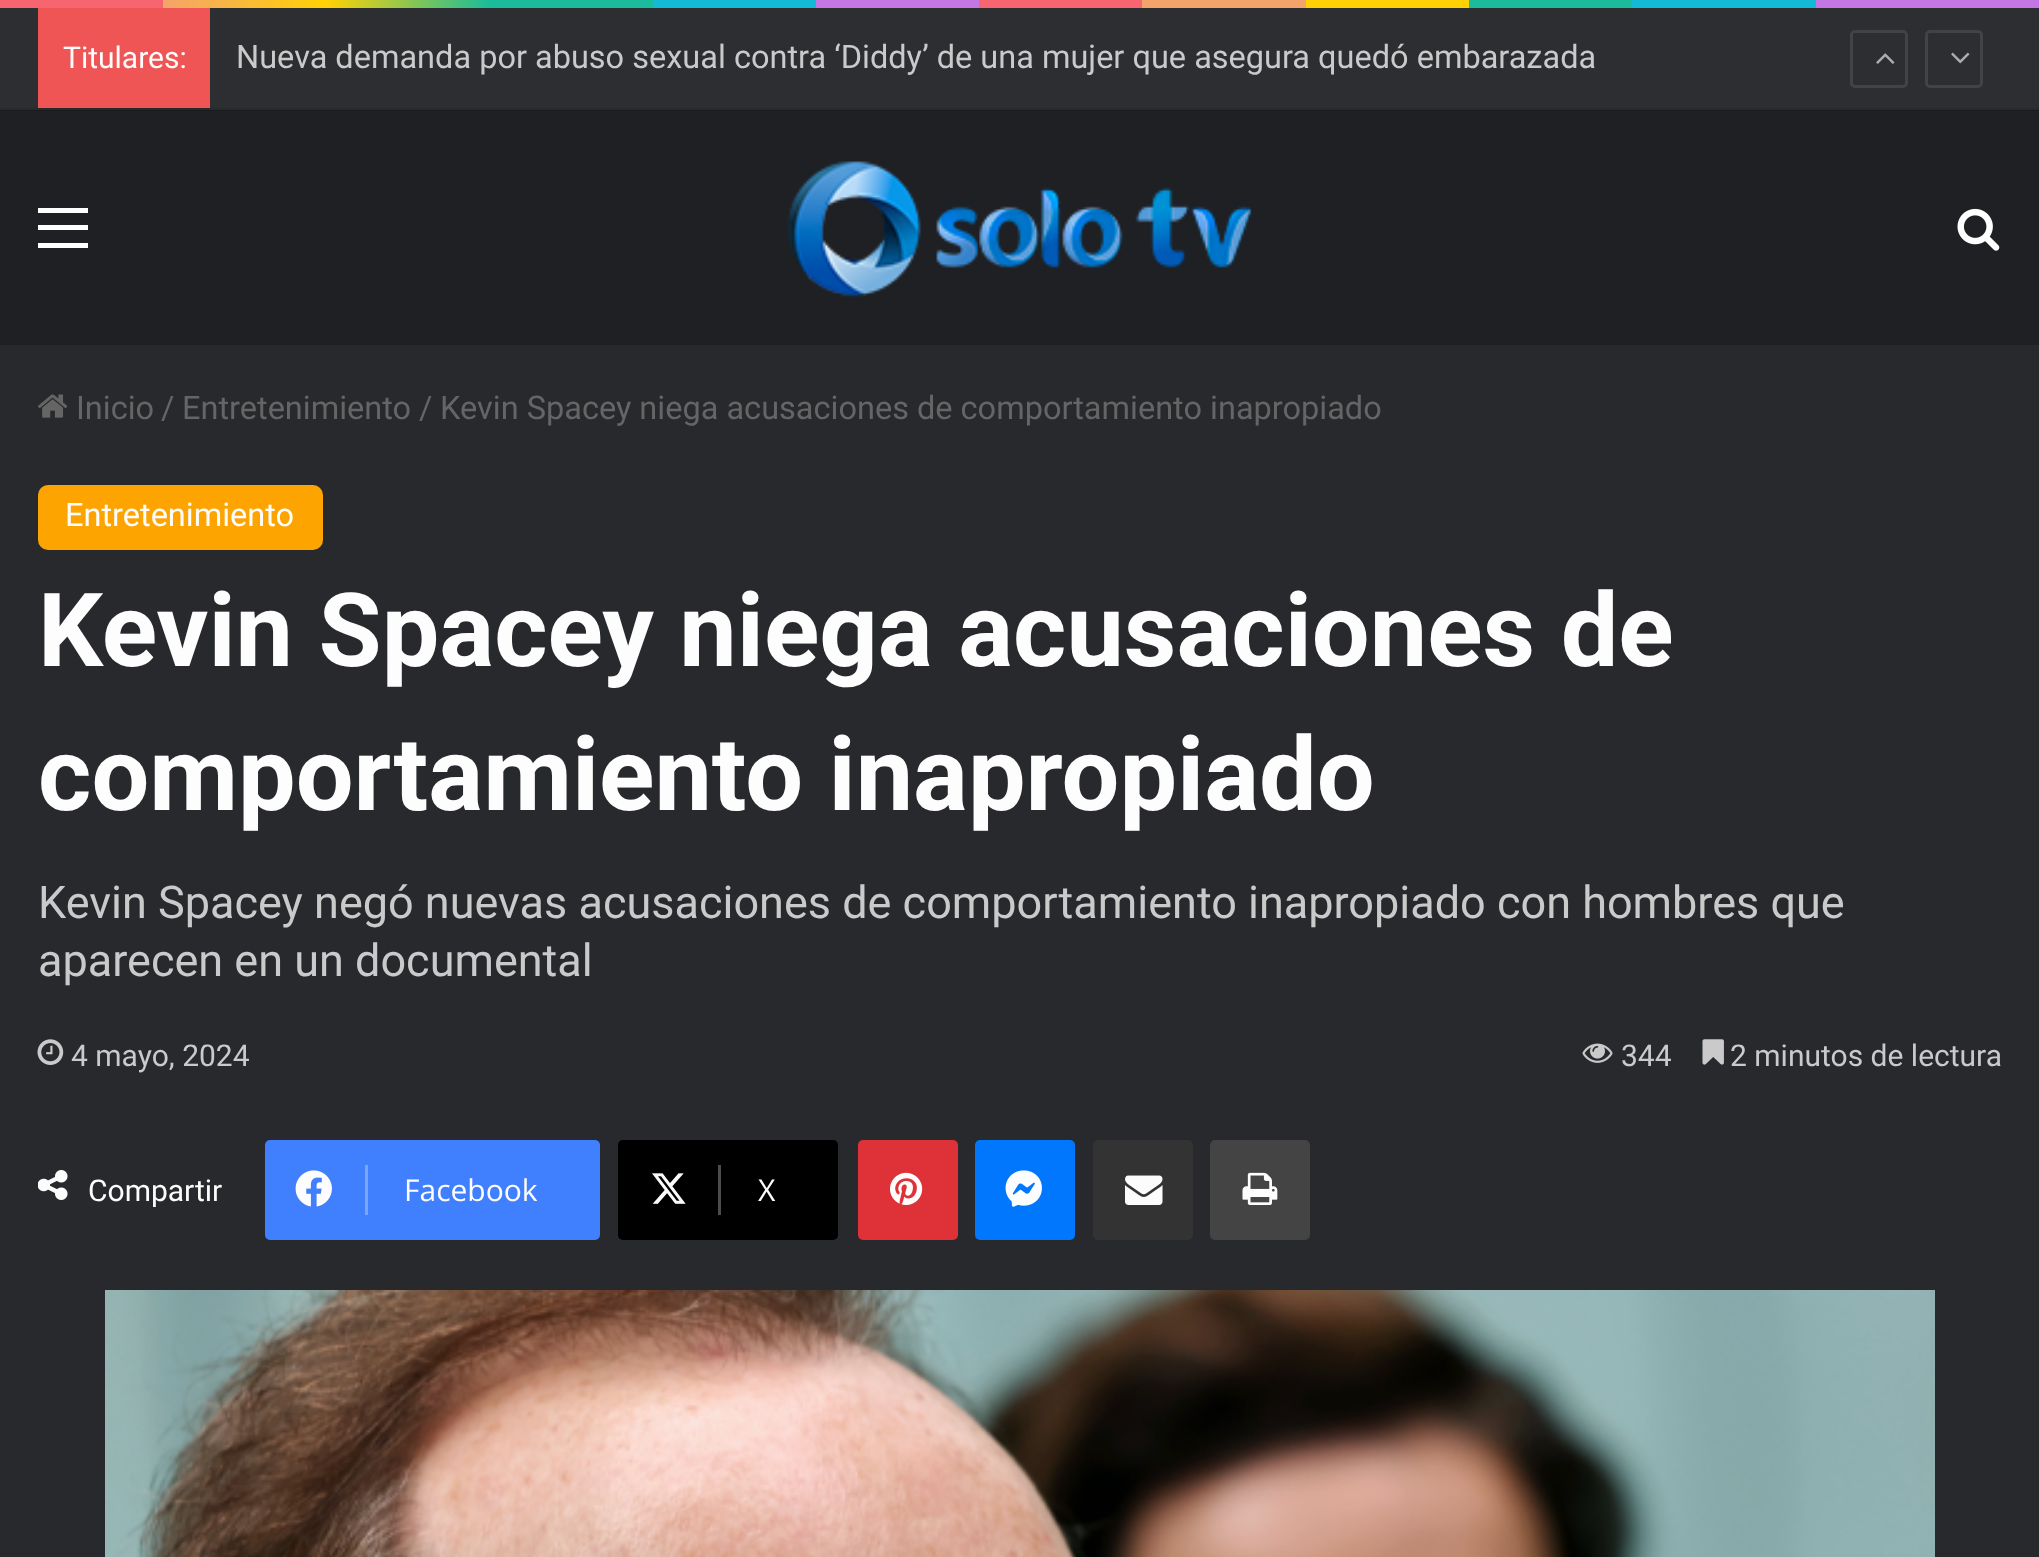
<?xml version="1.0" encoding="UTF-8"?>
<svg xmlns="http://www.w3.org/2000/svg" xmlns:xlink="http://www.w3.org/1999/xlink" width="2039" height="1557">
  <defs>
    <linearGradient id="g1" gradientUnits="userSpaceOnUse" x1="0" y1="3.8" x2="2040" y2="3.7"><stop offset="0" stop-color="#f76570" /><stop offset="0.08" stop-color="#f76570" /><stop offset="0.08" stop-color="#f3a46b" /><stop offset="0.16" stop-color="#ffd205" /><stop offset="0.24" stop-color="#1bbc9b" /><stop offset="0.32" stop-color="#1bbc9b" /><stop offset="0.32" stop-color="#14b9d5" /><stop offset="0.4" stop-color="#14b9d5" /><stop offset="0.4" stop-color="#c377e4" /><stop offset="0.48" stop-color="#c377e4" /><stop offset="0.48" stop-color="#f76570" /><stop offset="0.56" stop-color="#f76570" /><stop offset="0.56" stop-color="#f3a46b" /><stop offset="0.64" stop-color="#f3a46b" /><stop offset="0.64" stop-color="#ffd205" /><stop offset="0.72" stop-color="#ffd205" /><stop offset="0.72" stop-color="#1bbc9b" /><stop offset="0.8" stop-color="#1bbc9b" /><stop offset="0.8" stop-color="#14b9d5" /><stop offset="0.89" stop-color="#14b9d5" /><stop offset="0.89" stop-color="#c377e4" /><stop offset="1" stop-color="#c377e4" /></linearGradient>
  </defs>
  <rect width="100%" height="100%" fill="#27292d" />
  <rect width="2039" height="8" fill="url(#g1)" />
  <rect y="8" width="2039" height="102" fill="#2c2e32" />
  <rect y="110" width="2039" height="235" fill="#1f2024" />
  <rect y="108" width="2039" height="3" fill="#000000" fill-opacity="0.1" />
  <rect x="38" y="8" width="172" height="100" fill="#f05555" />
  <rect x="1851.5" y="31.5" width="55" height="55" rx="3.5" fill="none" stroke="#414347" stroke-width="3" />
  <image x="1876" y="53" width="19" height="11" xlink:href="image1.png" />
  <rect x="1926.5" y="31.5" width="55" height="55" rx="3.5" fill="none" stroke="#414347" stroke-width="3" />
  <image x="1951" y="52" width="19" height="12" xlink:href="image2.png" />
  <rect x="38" y="225" width="50" height="5" fill="#ffffff" />
  <rect x="38" y="208" width="50" height="5" fill="#ffffff" />
  <rect x="38" y="243" width="50" height="5" fill="#ffffff" />
  <image x="787" y="161" width="465" height="136" xlink:href="image3.png" />
  <image x="1957" y="208" width="43" height="43" xlink:href="image4.png" />
  <image x="38" y="394" width="30" height="24" xlink:href="image5.png" />
  <rect x="38" y="485" width="285" height="65" rx="10" fill="#fda400" />
  <image x="37" y="1039" width="27" height="26" xlink:href="image6.png" />
  <image x="1582" y="1043" width="31" height="20" xlink:href="image7.png" />
  <image x="1702" y="1039" width="22" height="26" xlink:href="image8.png" />
  <image x="38" y="1170" width="30" height="30" xlink:href="image9.png" />
  <rect x="265" y="1140" width="335" height="100" rx="5" fill="#407ffd" />
  <image x="295" y="1170" width="37" height="37" xlink:href="image10.png" />
  <rect x="365" y="1165" width="3" height="50" fill="#79a5fd" />
  <rect x="618" y="1140" width="220" height="100" rx="5" fill="#000000" />
  <image x="652" y="1173" width="34" height="31" xlink:href="image11.png" />
  <rect x="718" y="1165" width="3" height="50" fill="#4c4c4c" />
  <rect x="858" y="1140" width="100" height="100" rx="5" fill="#df3138" />
  <image x="890" y="1172" width="33" height="33" xlink:href="image12.png" />
  <rect x="975" y="1140" width="100" height="100" rx="5" fill="#0077fd" />
  <image x="1005" y="1170" width="37" height="37" xlink:href="image13.png" />
  <rect x="1093" y="1140" width="100" height="100" rx="5" fill="#333333" />
  <image x="1125" y="1175" width="38" height="30" xlink:href="image14.png" />
  <rect x="1210" y="1140" width="100" height="100" rx="5" fill="#444444" />
  <image x="1242" y="1172" width="36" height="33" xlink:href="image15.png" />
  <image x="105" y="1290" width="1830" height="267" xlink:href="image16.png" />
  <text x="63" y="68" style="font-family: Roboto; font-size: 30px; fill: #fdfdfd">Titulares:</text>
  <text x="236" y="68" style="font-family: Roboto; font-size: 32.5px; fill: #cacaca">Nueva demanda por abuso sexual contra ‘Diddy’ de una mujer que asegura quedó embarazada</text>
  <text x="76" y="419" style="font-family: Roboto; font-size: 32.5px; fill: #656565">Inicio</text>
  <text x="161" y="419" style="font-family: Roboto; font-size: 32.5px; fill: #656565">/</text>
  <text x="182" y="419" style="font-family: Roboto; font-size: 32.5px; fill: #656565">Entretenimiento</text>
  <text x="419" y="419" style="font-family: Roboto; font-size: 32.5px; fill: #656565">/</text>
  <text x="440" y="419" style="font-family: Roboto; font-size: 32.5px; fill: #656565">Kevin Spacey niega acusaciones de comportamiento inapropiado</text>
  <text x="65" y="526" style="font-family: Roboto; font-size: 32.5px; fill: #fdfdfd">Entretenimiento</text>
  <text x="38" y="666" style="font-family: Roboto; font-size: 102.5px; font-weight: bold; fill: #fdfdfd">Kevin Spacey niega acusaciones de</text>
  <text x="38" y="810" style="font-family: Roboto; font-size: 102.5px; font-weight: bold; fill: #fdfdfd">comportamiento inapropiado</text>
  <text x="38" y="918" style="font-family: Roboto; font-size: 45px; fill: #cacaca">Kevin Spacey negó nuevas acusaciones de comportamiento inapropiado con hombres que</text>
  <text x="38" y="976" style="font-family: Roboto; font-size: 45px; fill: #cacaca">aparecen en un documental</text>
  <text x="71" y="1066" style="font-family: Roboto; font-size: 30px; fill: #cacaca">4 mayo, 2024</text>
  <text x="1621" y="1066" style="font-family: Roboto; font-size: 30px; fill: #cacaca">344</text>
  <text x="1730" y="1066" style="font-family: Roboto; font-size: 30px; fill: #cacaca">2 minutos de lectura</text>
  <text x="88" y="1201" style="font-family: Roboto; font-size: 30px; fill: #fdfdfd">Compartir</text>
  <text x="404" y="1201" style="font-family: Open Sans; font-size: 30px; fill: #fdfdfd">Facebook</text>
  <text x="758" y="1201" style="font-family: Open Sans; font-size: 30px; fill: #fdfdfd">X</text>
</svg>
